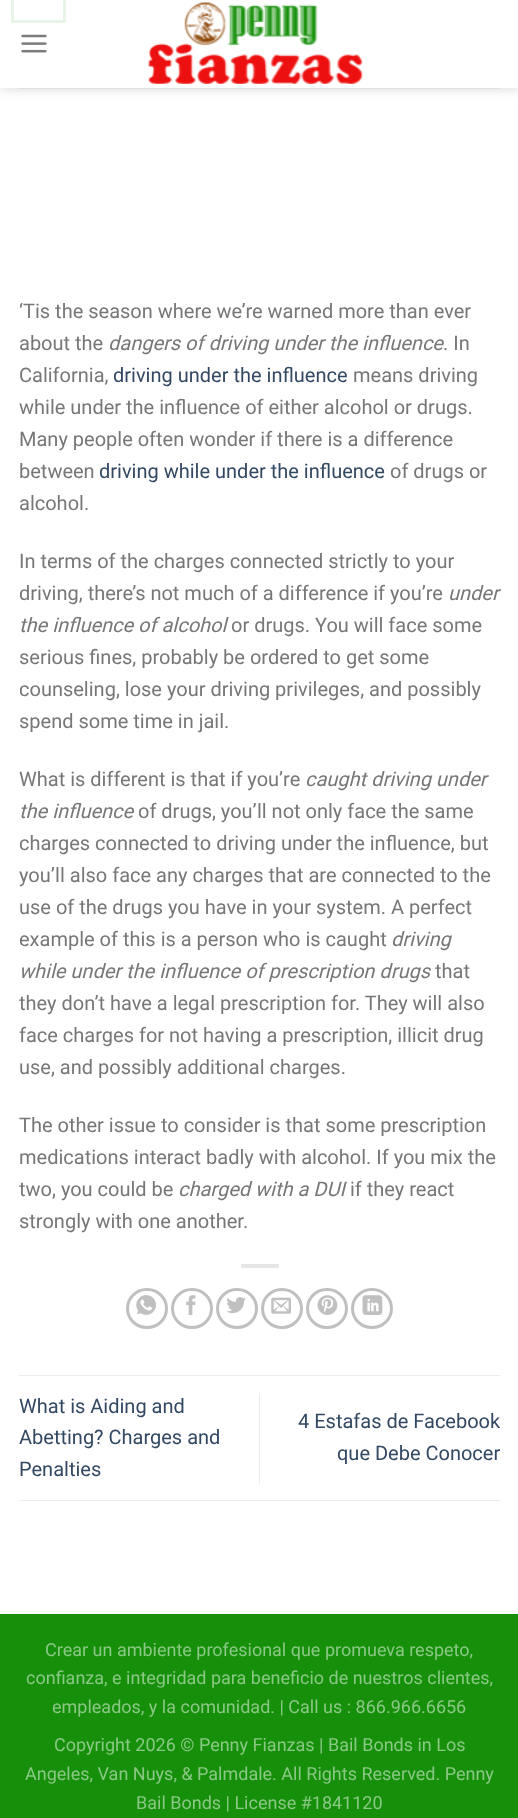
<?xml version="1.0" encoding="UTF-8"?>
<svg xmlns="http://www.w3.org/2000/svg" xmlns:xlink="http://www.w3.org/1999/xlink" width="518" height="1818">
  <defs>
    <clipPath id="clip1"><path d="M 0 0 h 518 v 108 h -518 z m 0 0 h 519 v 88 h -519 z" clip-rule="evenodd" /></clipPath>
  </defs>
  <rect width="100%" height="100%" fill="#ffffff" />
  <rect x="12.5" y="-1.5" width="52" height="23" fill="none" stroke="#16900a" stroke-width="3" />
  <g clip-path="url(#clip1)">
    <rect x="1" y="1" width="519" height="88" fill="#000000" fill-opacity="0.15" filter="blur(6px)" />
  </g>
  <rect width="518" height="88" fill="#ffffff" fill-opacity="0.9" />
  <image x="21" y="34" width="26" height="19" xlink:href="image1.png" />
  <image x="148" y="2" width="215" height="82" xlink:href="image2.png" />
  <rect x="19" y="88" width="481" height="1" fill="#dfdfdf" />
  <rect x="241" y="1264" width="38" height="4" fill="#e6e6e6" />
  <rect x="127.5" y="1289.5" width="39" height="38" rx="19" fill="none" stroke="#c0c0c0" stroke-width="3" />
  <image x="136" y="1295" width="20" height="20" xlink:href="image3.png" />
  <rect x="172.5" y="1289.5" width="39" height="38" rx="19" fill="none" stroke="#c0c0c0" stroke-width="3" />
  <image x="186" y="1295" width="10" height="20" xlink:href="image4.png" />
  <rect x="217.5" y="1289.5" width="39" height="38" rx="19" fill="none" stroke="#c0c0c0" stroke-width="3" />
  <image x="226" y="1297" width="20" height="17" xlink:href="image5.png" />
  <rect x="262.5" y="1289.5" width="39" height="38" rx="19" fill="none" stroke="#c0c0c0" stroke-width="3" />
  <image x="271" y="1297" width="20" height="17" xlink:href="image6.png" />
  <rect x="307.5" y="1289.5" width="39" height="38" rx="19" fill="none" stroke="#c0c0c0" stroke-width="3" />
  <image x="317" y="1295" width="21" height="20" xlink:href="image7.png" />
  <rect x="352.5" y="1289.5" width="39" height="38" rx="19" fill="none" stroke="#c0c0c0" stroke-width="3" />
  <image x="362" y="1295" width="21" height="20" xlink:href="image8.png" />
  <rect x="19" y="1375" width="481" height="1" fill="#ececec" />
  <rect x="19" y="1500" width="481" height="1" fill="#ececec" />
  <rect x="259" y="1393" width="1" height="91" fill="#ececec" />
  <rect y="1614" width="518" height="204" fill="#16900a" />
  <text x="19" y="318" style="font-family: Roboto; font-size: 20px; fill: #777777">‘Tis the season where we’re warned more than ever</text>
  <text x="19" y="350" style="font-family: Roboto; font-size: 20px; fill: #777777">about the</text>
  <text x="108" y="350" style="font-family: Roboto; font-size: 20px; font-style: italic; fill: #777777">dangers of driving under the influence</text>
  <text x="443" y="350" style="font-family: Roboto; font-size: 20px; fill: #777777">. In</text>
  <text x="19" y="382" style="font-family: Roboto; font-size: 20px; fill: #777777">California,</text>
  <text x="113" y="382" style="font-family: Roboto; font-size: 20px; fill: #334862">driving under the influence</text>
  <text x="353" y="382" style="font-family: Roboto; font-size: 20px; fill: #777777">means driving</text>
  <text x="19" y="414" style="font-family: Roboto; font-size: 20px; fill: #777777">while under the influence of either alcohol or drugs.</text>
  <text x="19" y="446" style="font-family: Roboto; font-size: 20px; fill: #777777">Many people often wonder if there is a difference</text>
  <text x="19" y="478" style="font-family: Roboto; font-size: 20px; fill: #777777">between</text>
  <text x="99" y="478" style="font-family: Roboto; font-size: 20px; fill: #334862">driving while under the influence</text>
  <text x="390" y="478" style="font-family: Roboto; font-size: 20px; fill: #777777">of drugs or</text>
  <text x="19" y="510" style="font-family: Roboto; font-size: 20px; fill: #777777">alcohol.</text>
  <text x="19" y="568" style="font-family: Roboto; font-size: 20px; fill: #777777">In terms of the charges connected strictly to your</text>
  <text x="19" y="600" style="font-family: Roboto; font-size: 20px; fill: #777777">driving, there’s not much of a difference if you’re</text>
  <text x="448" y="600" style="font-family: Roboto; font-size: 20px; font-style: italic; fill: #777777">under</text>
  <text x="19" y="632" style="font-family: Roboto; font-size: 20px; font-style: italic; fill: #777777">the influence of alcohol</text>
  <text x="231" y="632" style="font-family: Roboto; font-size: 20px; fill: #777777">or drugs. You will face some</text>
  <text x="19" y="664" style="font-family: Roboto; font-size: 20px; fill: #777777">serious fines, probably be ordered to get some</text>
  <text x="19" y="696" style="font-family: Roboto; font-size: 20px; fill: #777777">counseling, lose your driving privileges, and possibly</text>
  <text x="19" y="728" style="font-family: Roboto; font-size: 20px; fill: #777777">spend some time in jail.</text>
  <text x="19" y="786" style="font-family: Roboto; font-size: 20px; fill: #777777">What is different is that if you’re</text>
  <text x="305" y="786" style="font-family: Roboto; font-size: 20px; font-style: italic; fill: #777777">caught driving under</text>
  <text x="19" y="818" style="font-family: Roboto; font-size: 20px; font-style: italic; fill: #777777">the influence</text>
  <text x="138" y="818" style="font-family: Roboto; font-size: 20px; fill: #777777">of drugs, you’ll not only face the same</text>
  <text x="19" y="850" style="font-family: Roboto; font-size: 20px; fill: #777777">charges connected to driving under the influence, but</text>
  <text x="19" y="882" style="font-family: Roboto; font-size: 20px; fill: #777777">you’ll also face any charges that are connected to the</text>
  <text x="19" y="914" style="font-family: Roboto; font-size: 20px; fill: #777777">use of the drugs you have in your system. A perfect</text>
  <text x="19" y="946" style="font-family: Roboto; font-size: 20px; fill: #777777">example of this is a person who is caught</text>
  <text x="391" y="946" style="font-family: Roboto; font-size: 20px; font-style: italic; fill: #777777">driving</text>
  <text x="19" y="978" style="font-family: Roboto; font-size: 20px; font-style: italic; fill: #777777">while under the influence of prescription drugs</text>
  <text x="435" y="978" style="font-family: Roboto; font-size: 20px; fill: #777777">that</text>
  <text x="19" y="1010" style="font-family: Roboto; font-size: 20px; fill: #777777">they don’t have a legal prescription for. They will also</text>
  <text x="19" y="1042" style="font-family: Roboto; font-size: 20px; fill: #777777">face charges for not having a prescription, illicit drug</text>
  <text x="19" y="1074" style="font-family: Roboto; font-size: 20px; fill: #777777">use, and possibly additional charges.</text>
  <text x="19" y="1132" style="font-family: Roboto; font-size: 20px; fill: #777777">The other issue to consider is that some prescription</text>
  <text x="19" y="1164" style="font-family: Roboto; font-size: 20px; fill: #777777">medications interact badly with alcohol. If you mix the</text>
  <text x="19" y="1196" style="font-family: Roboto; font-size: 20px; fill: #777777">two, you could be</text>
  <text x="178" y="1196" style="font-family: Roboto; font-size: 20px; font-style: italic; fill: #777777">charged with a DUI</text>
  <text x="350" y="1196" style="font-family: Roboto; font-size: 20px; fill: #777777">if they react</text>
  <text x="19" y="1228" style="font-family: Roboto; font-size: 20px; fill: #777777">strongly with one another.</text>
  <text x="19" y="1413" style="font-family: Roboto; font-size: 20px; fill: #334862">What is Aiding and</text>
  <text x="19" y="1444" style="font-family: Roboto; font-size: 20px; fill: #334862">Abetting? Charges and</text>
  <text x="19" y="1476" style="font-family: Roboto; font-size: 20px; fill: #334862">Penalties</text>
  <text x="298" y="1428" style="font-family: Roboto; font-size: 20px; fill: #334862">4 Estafas de Facebook</text>
  <text x="337" y="1460" style="font-family: Roboto; font-size: 20px; fill: #334862">que Debe Conocer</text>
  <text x="45" y="1656" style="font-family: Roboto; font-size: 18px; fill: #8bc885">Crear un ambiente profesional que promueva respeto,</text>
  <text x="26" y="1684" style="font-family: Roboto; font-size: 18px; fill: #8bc885">confianza, e integridad para beneficio de nuestros clientes,</text>
  <text x="52" y="1713" style="font-family: Roboto; font-size: 18px; fill: #8bc885">empleados, y la comunidad. | Call us : 866.966.6656</text>
  <text x="54" y="1751" style="font-family: Roboto; font-size: 18px; fill: #8bc885">Copyright 2026 © Penny Fianzas | Bail Bonds in Los</text>
  <text x="25" y="1780" style="font-family: Roboto; font-size: 18px; fill: #8bc885">Angeles, Van Nuys, &amp; Palmdale. All Rights Reserved. Penny</text>
  <text x="136" y="1809" style="font-family: Roboto; font-size: 18px; fill: #8bc885">Bail Bonds | License #1841120</text>
</svg>
